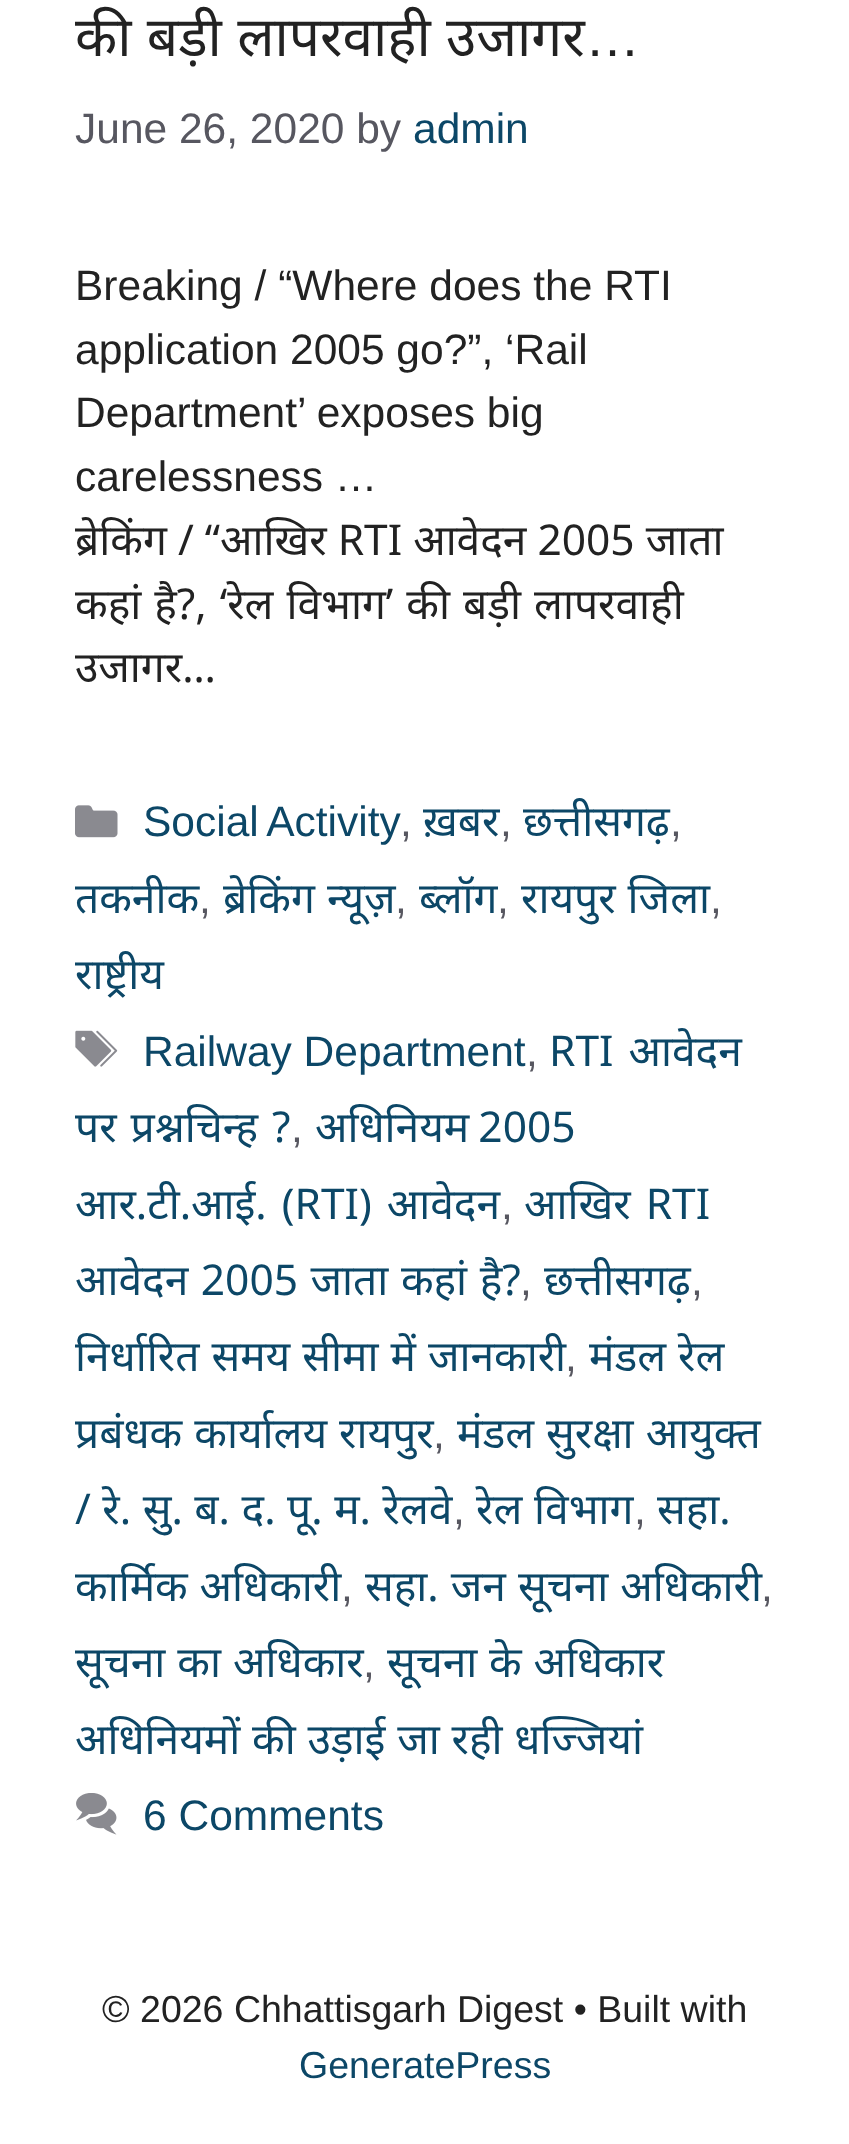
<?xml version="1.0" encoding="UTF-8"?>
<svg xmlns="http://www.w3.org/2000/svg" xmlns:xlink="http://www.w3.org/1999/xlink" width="849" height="2144">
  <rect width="100%" height="100%" fill="#ffffff" />
  <image x="75" y="805" width="43" height="33" xlink:href="image1.png" />
  <image x="75" y="1030" width="43" height="37" xlink:href="image2.png" />
  <image x="76" y="1793" width="41" height="42" xlink:href="image3.png" />
  <text x="75" y="56" word-spacing="1" style="font-family: Noto Sans; font-size: 55px; fill: #222222">की बड़ी लापरवाही उजागर</text>
  <text x="585" y="56" style="font-family: Liberation Sans; font-size: 55px; fill: #222222">…</text>
  <text x="75" y="143" style="font-family: Liberation Sans; font-size: 42.5px; fill: #575760">June 26, 2020 by</text>
  <text x="413" y="143" style="font-family: Liberation Sans; font-size: 42.5px; fill: #0c4767">admin</text>
  <text x="75" y="300" style="font-family: Liberation Sans; font-size: 42.5px; fill: #222222">Breaking / “Where does the RTI</text>
  <text x="75" y="364" style="font-family: Liberation Sans; font-size: 42.5px; fill: #222222">application 2005 go?”, ‘Rail</text>
  <text x="75" y="427" style="font-family: Liberation Sans; font-size: 42.5px; fill: #222222">Department’ exposes big</text>
  <text x="75" y="491" style="font-family: Liberation Sans; font-size: 42.5px; fill: #222222">carelessness …</text>
  <text x="75" y="555" style="font-family: Noto Sans; font-size: 42.5px; fill: #222222">ब्रेकिंग / “आखिर RTI आवेदन 2005 जाता</text>
  <text x="75" y="619" word-spacing="2" style="font-family: Noto Sans; font-size: 42.5px; fill: #222222">कहां है?, ‘रेल विभाग’ की बड़ी लापरवाही</text>
  <text x="75" y="682" style="font-family: Noto Sans; font-size: 42.5px; fill: #222222">उजागर…</text>
  <text x="143" y="836" word-spacing="-2" style="font-family: Liberation Sans; font-size: 42.5px; fill: #0c4767">Social Activity</text>
  <text x="400" y="836" style="font-family: Liberation Sans; font-size: 42.5px; fill: #575760">,</text>
  <text x="423" y="836" style="font-family: Noto Sans; font-size: 42.5px; fill: #0c4767">ख़बर</text>
  <text x="500" y="836" style="font-family: Liberation Sans; font-size: 42.5px; fill: #575760">,</text>
  <text x="523" y="836" style="font-family: Noto Sans; font-size: 42.5px; fill: #0c4767">छत्तीसगढ़</text>
  <text x="670" y="836" style="font-family: Liberation Sans; font-size: 42.5px; fill: #575760">,</text>
  <text x="75" y="913" style="font-family: Noto Sans; font-size: 42.5px; fill: #0c4767">तकनीक</text>
  <text x="419" y="913" style="font-family: Noto Sans; font-size: 42.5px; fill: #0c4767">ब्लॉग</text>
  <text x="521" y="913" word-spacing="1" style="font-family: Noto Sans; font-size: 42.5px; fill: #0c4767">रायपुर जिला</text>
  <text x="199" y="913" style="font-family: Liberation Sans; font-size: 42.5px; fill: #575760">,</text>
  <text x="223" y="913" word-spacing="1" style="font-family: Noto Sans; font-size: 42.5px; fill: #0c4767">ब्रेकिंग न्यूज़</text>
  <text x="395" y="913" style="font-family: Liberation Sans; font-size: 42.5px; fill: #575760">,</text>
  <text x="497" y="913" style="font-family: Liberation Sans; font-size: 42.5px; fill: #575760">,</text>
  <text x="710" y="913" style="font-family: Liberation Sans; font-size: 42.5px; fill: #575760">,</text>
  <text x="75" y="989" style="font-family: Noto Sans; font-size: 42.5px; fill: #0c4767">राष्ट्रीय</text>
  <text x="143" y="1066" style="font-family: Liberation Sans; font-size: 42.5px; fill: #0c4767">Railway Department</text>
  <text x="526" y="1066" style="font-family: Liberation Sans; font-size: 42.5px; fill: #575760">,</text>
  <text x="549" y="1066" word-spacing="4" style="font-family: Noto Sans; font-size: 42.5px; fill: #0c4767">RTI आवेदन</text>
  <text x="75" y="1142" word-spacing="3" style="font-family: Noto Sans; font-size: 42.5px; fill: #0c4767">पर प्रश्नचिन्ह ?</text>
  <text x="291" y="1142" style="font-family: Liberation Sans; font-size: 42.5px; fill: #575760">,</text>
  <text x="315" y="1142" word-spacing="-2" style="font-family: Noto Sans; font-size: 42.5px; fill: #0c4767">अधिनियम 2005</text>
  <text x="75" y="1219" word-spacing="4" style="font-family: Noto Sans; font-size: 42.5px; fill: #0c4767">आर.टी.आई. (RTI) आवेदन</text>
  <text x="501" y="1219" style="font-family: Liberation Sans; font-size: 42.5px; fill: #575760">,</text>
  <text x="524" y="1219" word-spacing="4" style="font-family: Noto Sans; font-size: 42.5px; fill: #0c4767">आखिर RTI</text>
  <text x="75" y="1295" word-spacing="1.5" style="font-family: Noto Sans; font-size: 42.5px; fill: #0c4767">आवेदन 2005 जाता कहां है?</text>
  <text x="520" y="1295" style="font-family: Liberation Sans; font-size: 42.5px; fill: #575760">,</text>
  <text x="544" y="1295" style="font-family: Noto Sans; font-size: 42.5px; fill: #0c4767">छत्तीसगढ़</text>
  <text x="691" y="1295" style="font-family: Liberation Sans; font-size: 42.5px; fill: #575760">,</text>
  <text x="75" y="1371" word-spacing="1" style="font-family: Noto Sans; font-size: 42.5px; fill: #0c4767">निर्धारित समय सीमा में जानकारी</text>
  <text x="565" y="1371" style="font-family: Liberation Sans; font-size: 42.5px; fill: #575760">,</text>
  <text x="589" y="1371" word-spacing="1" style="font-family: Noto Sans; font-size: 42.5px; fill: #0c4767">मंडल रेल</text>
  <text x="75" y="1448" word-spacing="1" style="font-family: Noto Sans; font-size: 42.5px; fill: #0c4767">प्रबंधक कार्यालय रायपुर</text>
  <text x="433" y="1448" style="font-family: Liberation Sans; font-size: 42.5px; fill: #575760">,</text>
  <text x="457" y="1448" word-spacing="1" style="font-family: Noto Sans; font-size: 42.5px; fill: #0c4767">मंडल सुरक्षा आयुक्त</text>
  <text x="75" y="1524" word-spacing="0.5" style="font-family: Noto Sans; font-size: 42.5px; fill: #0c4767">/ रे. सु. ब. द. पू. म. रेलवे</text>
  <text x="657" y="1524" style="font-family: Noto Sans; font-size: 42.5px; fill: #0c4767">सहा.</text>
  <text x="453" y="1524" style="font-family: Liberation Sans; font-size: 42.5px; fill: #575760">,</text>
  <text x="476" y="1524" word-spacing="0.75" style="font-family: Noto Sans; font-size: 42.5px; fill: #0c4767">रेल विभाग</text>
  <text x="634" y="1524" style="font-family: Liberation Sans; font-size: 42.5px; fill: #575760">,</text>
  <text x="75" y="1601" word-spacing="0.75" style="font-family: Noto Sans; font-size: 42.5px; fill: #0c4767">कार्मिक अधिकारी</text>
  <text x="341" y="1601" style="font-family: Liberation Sans; font-size: 42.5px; fill: #575760">,</text>
  <text x="365" y="1601" word-spacing="1" style="font-family: Noto Sans; font-size: 42.5px; fill: #0c4767">सहा. जन सूचना अधिकारी</text>
  <text x="761" y="1601" style="font-family: Liberation Sans; font-size: 42.5px; fill: #575760">,</text>
  <text x="75" y="1677" word-spacing="1" style="font-family: Noto Sans; font-size: 42.5px; fill: #0c4767">सूचना का अधिकार</text>
  <text x="363" y="1677" style="font-family: Liberation Sans; font-size: 42.5px; fill: #575760">,</text>
  <text x="387" y="1677" word-spacing="0.75" style="font-family: Noto Sans; font-size: 42.5px; fill: #0c4767">सूचना के अधिकार</text>
  <text x="75" y="1754" word-spacing="0.75" style="font-family: Noto Sans; font-size: 42.5px; fill: #0c4767">अधिनियमों की उड़ाई जा रही धज्जियां</text>
  <text x="143" y="1830" style="font-family: Liberation Sans; font-size: 42.5px; fill: #0c4767">6 Comments</text>
  <text x="102" y="2022" style="font-family: Liberation Sans; font-size: 37.5px; fill: #222222">© 2026 Chhattisgarh Digest • Built with</text>
  <text x="299" y="2078" style="font-family: Liberation Sans; font-size: 37.5px; fill: #0c4767">GeneratePress</text>
</svg>
